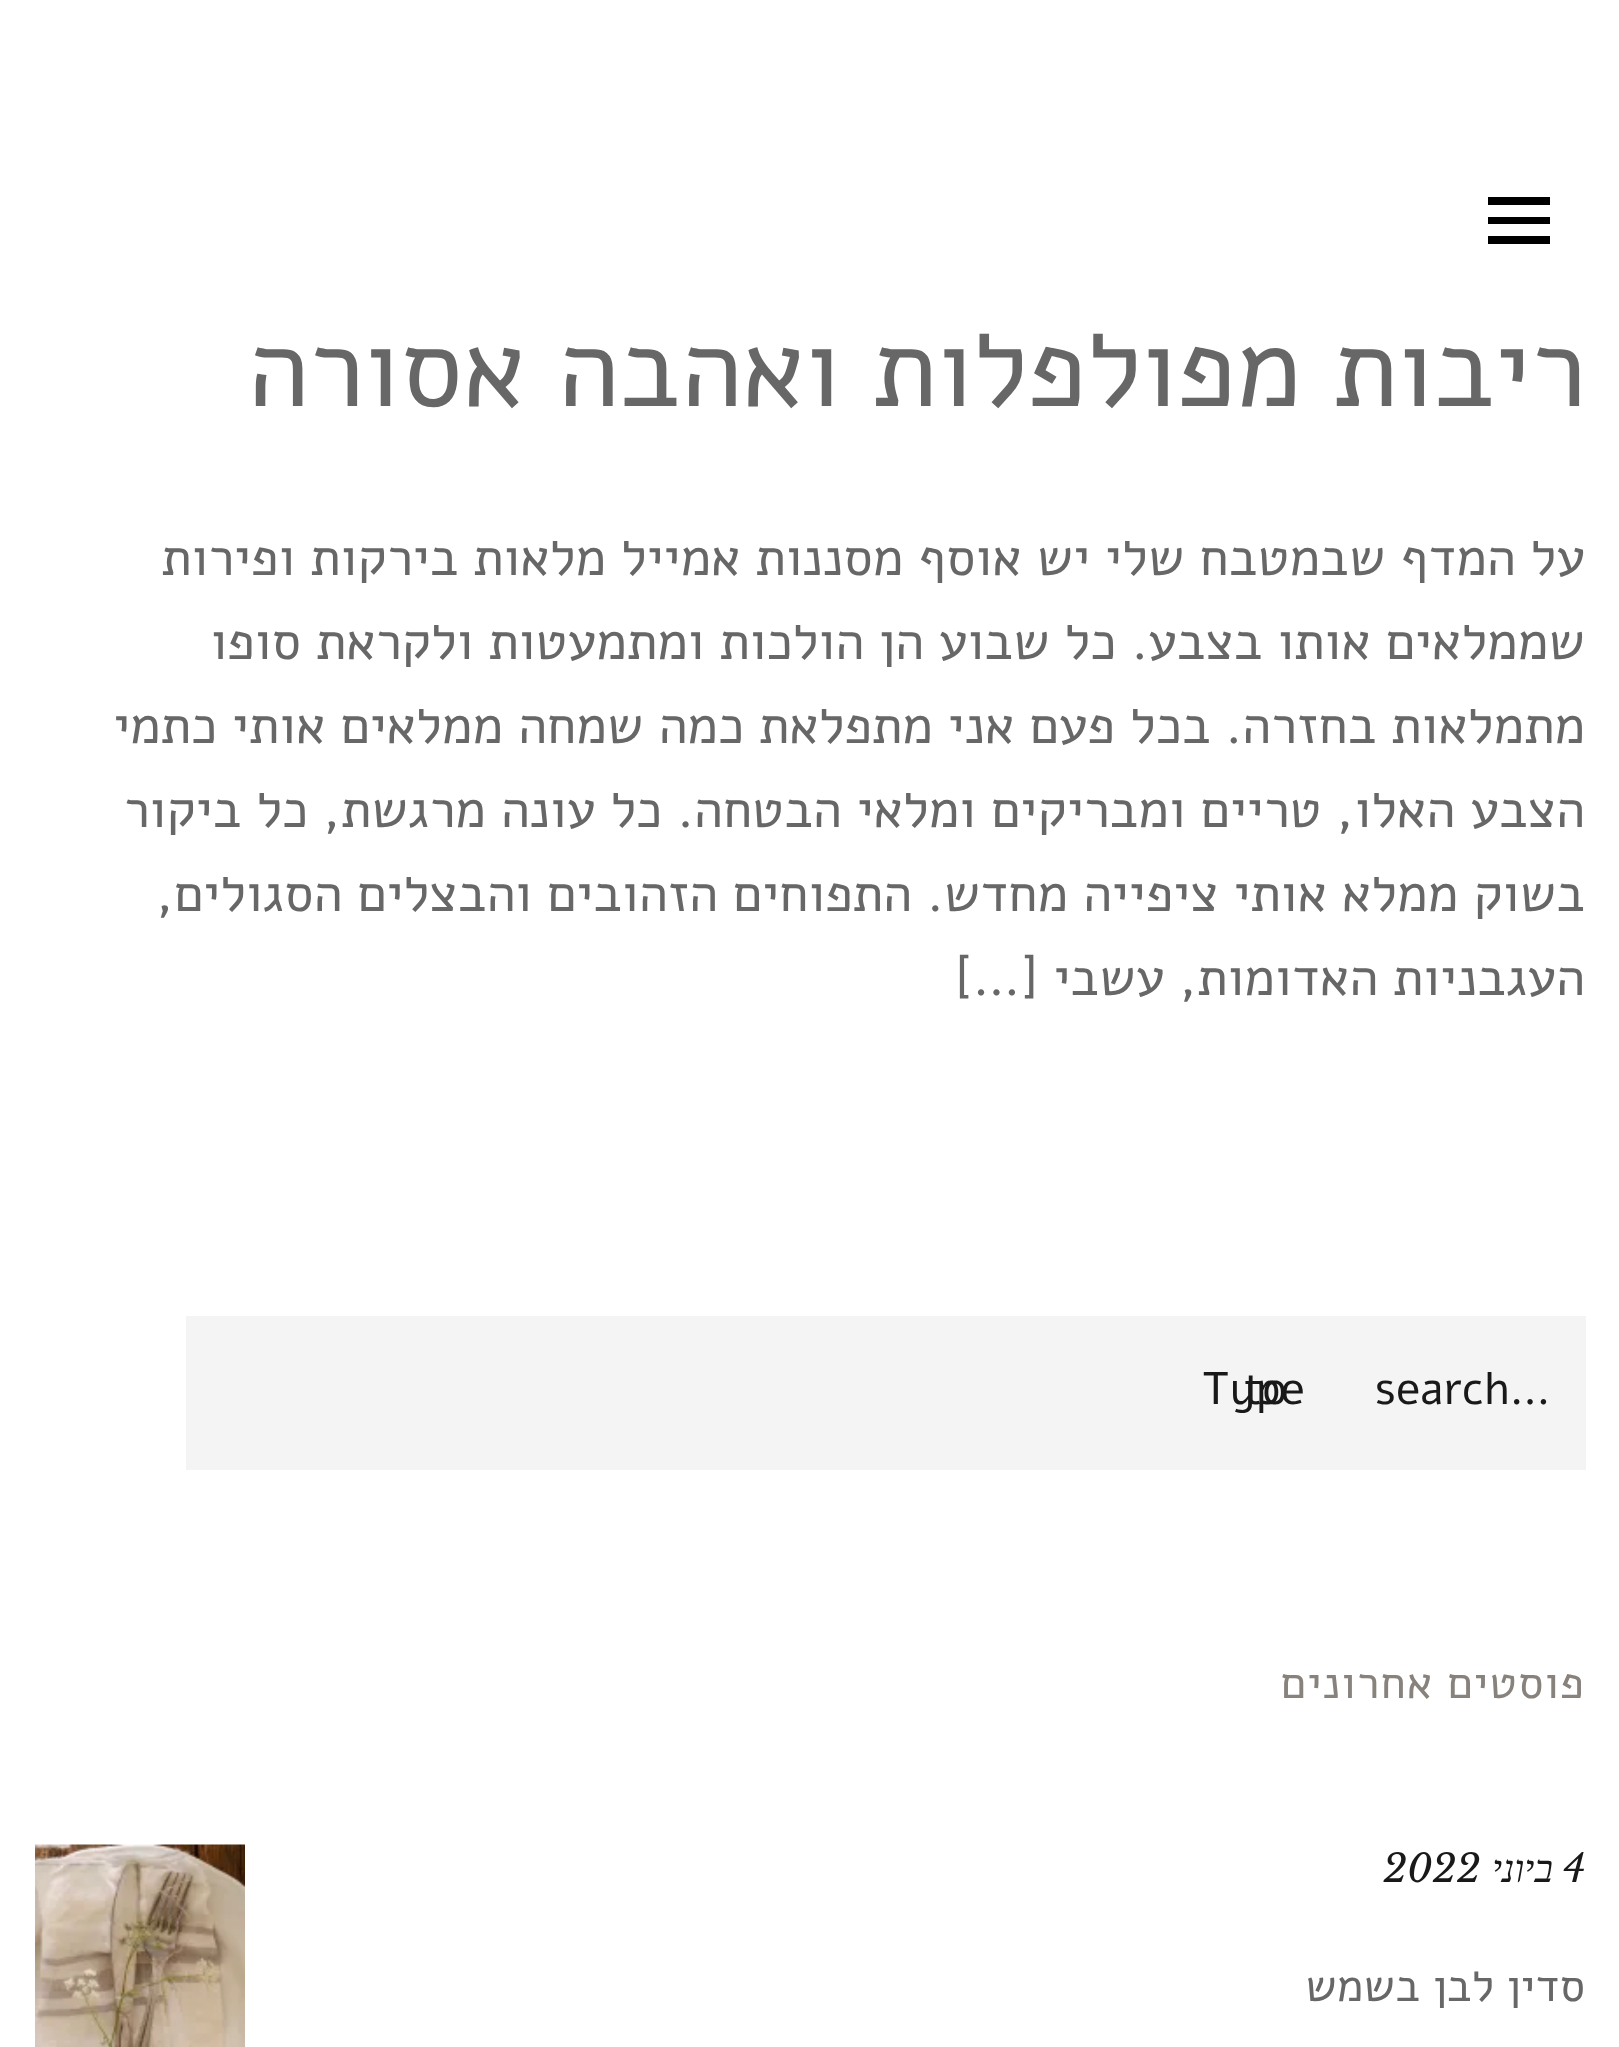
<?xml version="1.0" encoding="UTF-8"?>
<svg xmlns="http://www.w3.org/2000/svg" xmlns:xlink="http://www.w3.org/1999/xlink" width="1619" height="2047">
  <rect width="100%" height="100%" fill="#ffffff" />
  <path d="M 1488 244 v -8 h 62 v 8 z m 0 -47 h 62 v 8 h -62 z m 0 27 v -7 h 62 v 7 z" fill="#000000" />
  <rect x="186" y="1316" width="1400" height="154" fill="#f4f4f4" />
  <image x="35" y="1844" width="210" height="203" xlink:href="image1.png" />
  <text x="1586" y="406" style="font-family: Alef; font-size: 112px; direction: rtl; fill: #676767">ריבות מפולפלות ואהבה אסורה</text>
  <text x="1585" y="575" style="font-family: Alef; font-size: 52.5px; direction: rtl; fill: #676767">על המדף שבמטבח שלי יש אוסף מסננות אמייל מלאות בירקות ופירות</text>
  <text x="1585" y="659" style="font-family: Alef; font-size: 52.5px; direction: rtl; fill: #676767">שממלאים אותו בצבע. כל שבוע הן הולכות ומתמעטות ולקראת סופו</text>
  <text x="1585" y="743" style="font-family: Alef; font-size: 52.5px; direction: rtl; fill: #676767">מתמלאות בחזרה. בכל פעם אני מתפלאת כמה שמחה ממלאים אותי כתמי</text>
  <text x="1585" y="827" style="font-family: Alef; font-size: 52.5px; direction: rtl; fill: #676767">הצבע האלו, טריים ומבריקים ומלאי הבטחה. כל עונה מרגשת, כל ביקור</text>
  <text x="1585" y="911" style="font-family: Alef; font-size: 52.5px; direction: rtl; fill: #676767">בשוק ממלא אותי ציפייה מחדש. התפוחים הזהובים והבצלים הסגולים,</text>
  <text x="1585" y="995" style="font-family: Alef; font-size: 52.5px; direction: rtl; fill: #676767">העגבניות האדומות, עשבי […]</text>
  <text x="1202" y="1404" style="font-family: Alef; font-size: 45.5px; fill: #191919">Type</text>
  <text x="1243" y="1404" word-spacing="75" style="font-family: Alef; font-size: 45.5px; fill: #191919">to search…</text>
  <text x="1585" y="1698" style="font-family: Alef; font-size: 45.5px; letter-spacing: 1px; direction: rtl; fill: #87827c">פוסטים אחרונים</text>
  <text x="1563" y="1882" style="font-family: Libre Baskerville; font-size: 38.5px; font-style: italic; fill: #191919">4</text>
  <text x="1553" y="1882" style="font-family: Liberation Serif; font-size: 38.5px; font-style: italic; direction: rtl; fill: #191919">ביוני</text>
  <text x="1383" y="1882" style="font-family: Libre Baskerville; font-size: 38.5px; font-style: italic; fill: #191919">2022</text>
  <text x="1585" y="2001" style="font-family: Alef; font-size: 45.5px; direction: rtl; fill: #676767">סדין לבן בשמש</text>
</svg>
